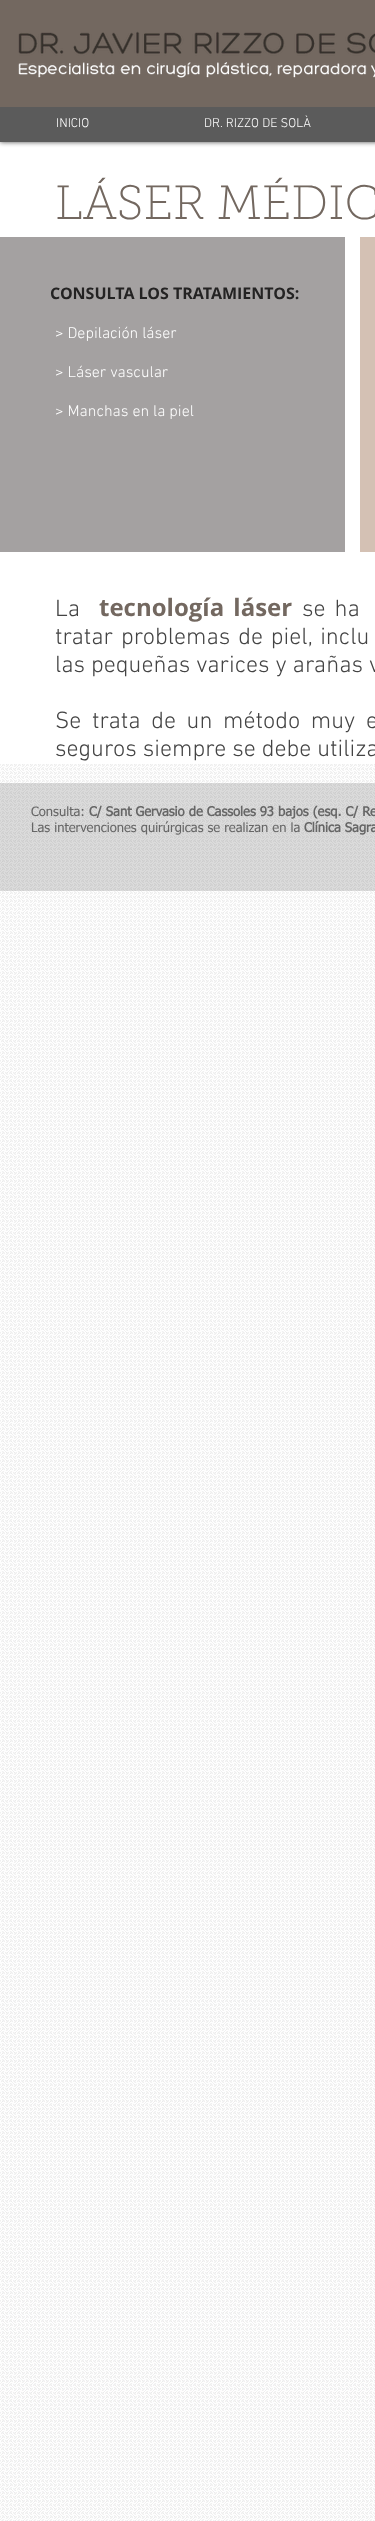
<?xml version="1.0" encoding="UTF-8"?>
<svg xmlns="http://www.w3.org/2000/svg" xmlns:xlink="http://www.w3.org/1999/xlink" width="375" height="2521">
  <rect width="100%" height="100%" fill="#ffffff" />
  <rect width="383" height="142" fill="#000000" fill-opacity="0.7" filter="blur(2.5px)" />
  <rect width="375" height="107" fill="#736860" />
  <image x="18" y="31" width="357" height="47" xlink:href="image1.png" />
  <rect y="107" width="375" height="35" fill="#5b5b5b" />
  <rect y="237" width="345" height="315" fill="#a4a1a1" />
  <rect x="360" y="237" width="15" height="315" fill="#d4c1b4" />
  <image x="0" y="764" width="375" height="1757" xlink:href="image2.png" />
  <rect y="783" width="375" height="108" fill="#666666" fill-opacity="0.23" />
  <text x="56" y="127" style="font-family: 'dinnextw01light'; font-size: 13px; font-weight: 300; fill: #ffffff">INICIO</text>
  <text x="204" y="127" style="font-family: 'dinnextw01light'; font-size: 13px; font-weight: 300; fill: #ffffff">DR. RIZZO DE SOLÀ</text>
  <text x="55" y="219" style="font-family: 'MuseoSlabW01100'; font-size: 48px; font-weight: 100; fill: #736860">LÁSER MÉDIC</text>
  <text x="50" y="299" style="font-family: Open Sans; font-size: 16px; font-weight: bold; fill: #242323">CONSULTA LOS TRATAMIENTOS:</text>
  <text x="55" y="338" style="font-family: 'dinnextw01light'; font-size: 16px; font-weight: 300; fill: #ffffff">&gt; Depilación láser</text>
  <text x="55" y="377" style="font-family: 'dinnextw01light'; font-size: 16px; font-weight: 300; fill: #ffffff">&gt; Láser vascular</text>
  <text x="55" y="416" style="font-family: 'dinnextw01light'; font-size: 16px; font-weight: 300; fill: #ffffff">&gt; Manchas en la piel</text>
  <text x="55" y="616" style="font-family: 'dinnextw01light'; font-size: 24px; font-weight: 300; fill: #444444">La</text>
  <text x="99" y="616" word-spacing="3" style="font-family: Open Sans; font-size: 24px; font-weight: bold; fill: #736860">tecnología láser</text>
  <text x="302" y="616" word-spacing="3" style="font-family: 'dinnextw01light'; font-size: 24px; font-weight: 300; fill: #444444">se ha</text>
  <text x="55" y="644" word-spacing="2" style="font-family: 'dinnextw01light'; font-size: 24px; font-weight: 300; fill: #444444">tratar problemas de piel, inclu</text>
  <text x="55" y="672" style="font-family: 'dinnextw01light'; font-size: 24px; font-weight: 300; fill: #444444">las pequeñas varices y arañas v</text>
  <text x="55" y="728" word-spacing="4.75" style="font-family: 'dinnextw01light'; font-size: 24px; font-weight: 300; fill: #444444">Se trata de un método muy e</text>
  <text x="55" y="756" style="font-family: 'dinnextw01light'; font-size: 24px; font-weight: 300; fill: #444444">seguros siempre se debe utiliza</text>
  <text x="31" y="816" style="font-family: tahoma; font-size: 13px; fill: #666666">Consulta:</text>
  <text x="89" y="816" style="font-family: tahoma; font-size: 13px; font-weight: bold; fill: #666666">C/ Sant Gervasio de Cassoles 93 bajos (esq. C/ Re</text>
  <text x="31" y="832" style="font-family: tahoma; font-size: 13px; fill: #666666">Las intervenciones quirúrgicas se realizan en la</text>
  <text x="304" y="832" style="font-family: tahoma; font-size: 13px; font-weight: bold; fill: #666666">Clínica Sagra</text>
</svg>
